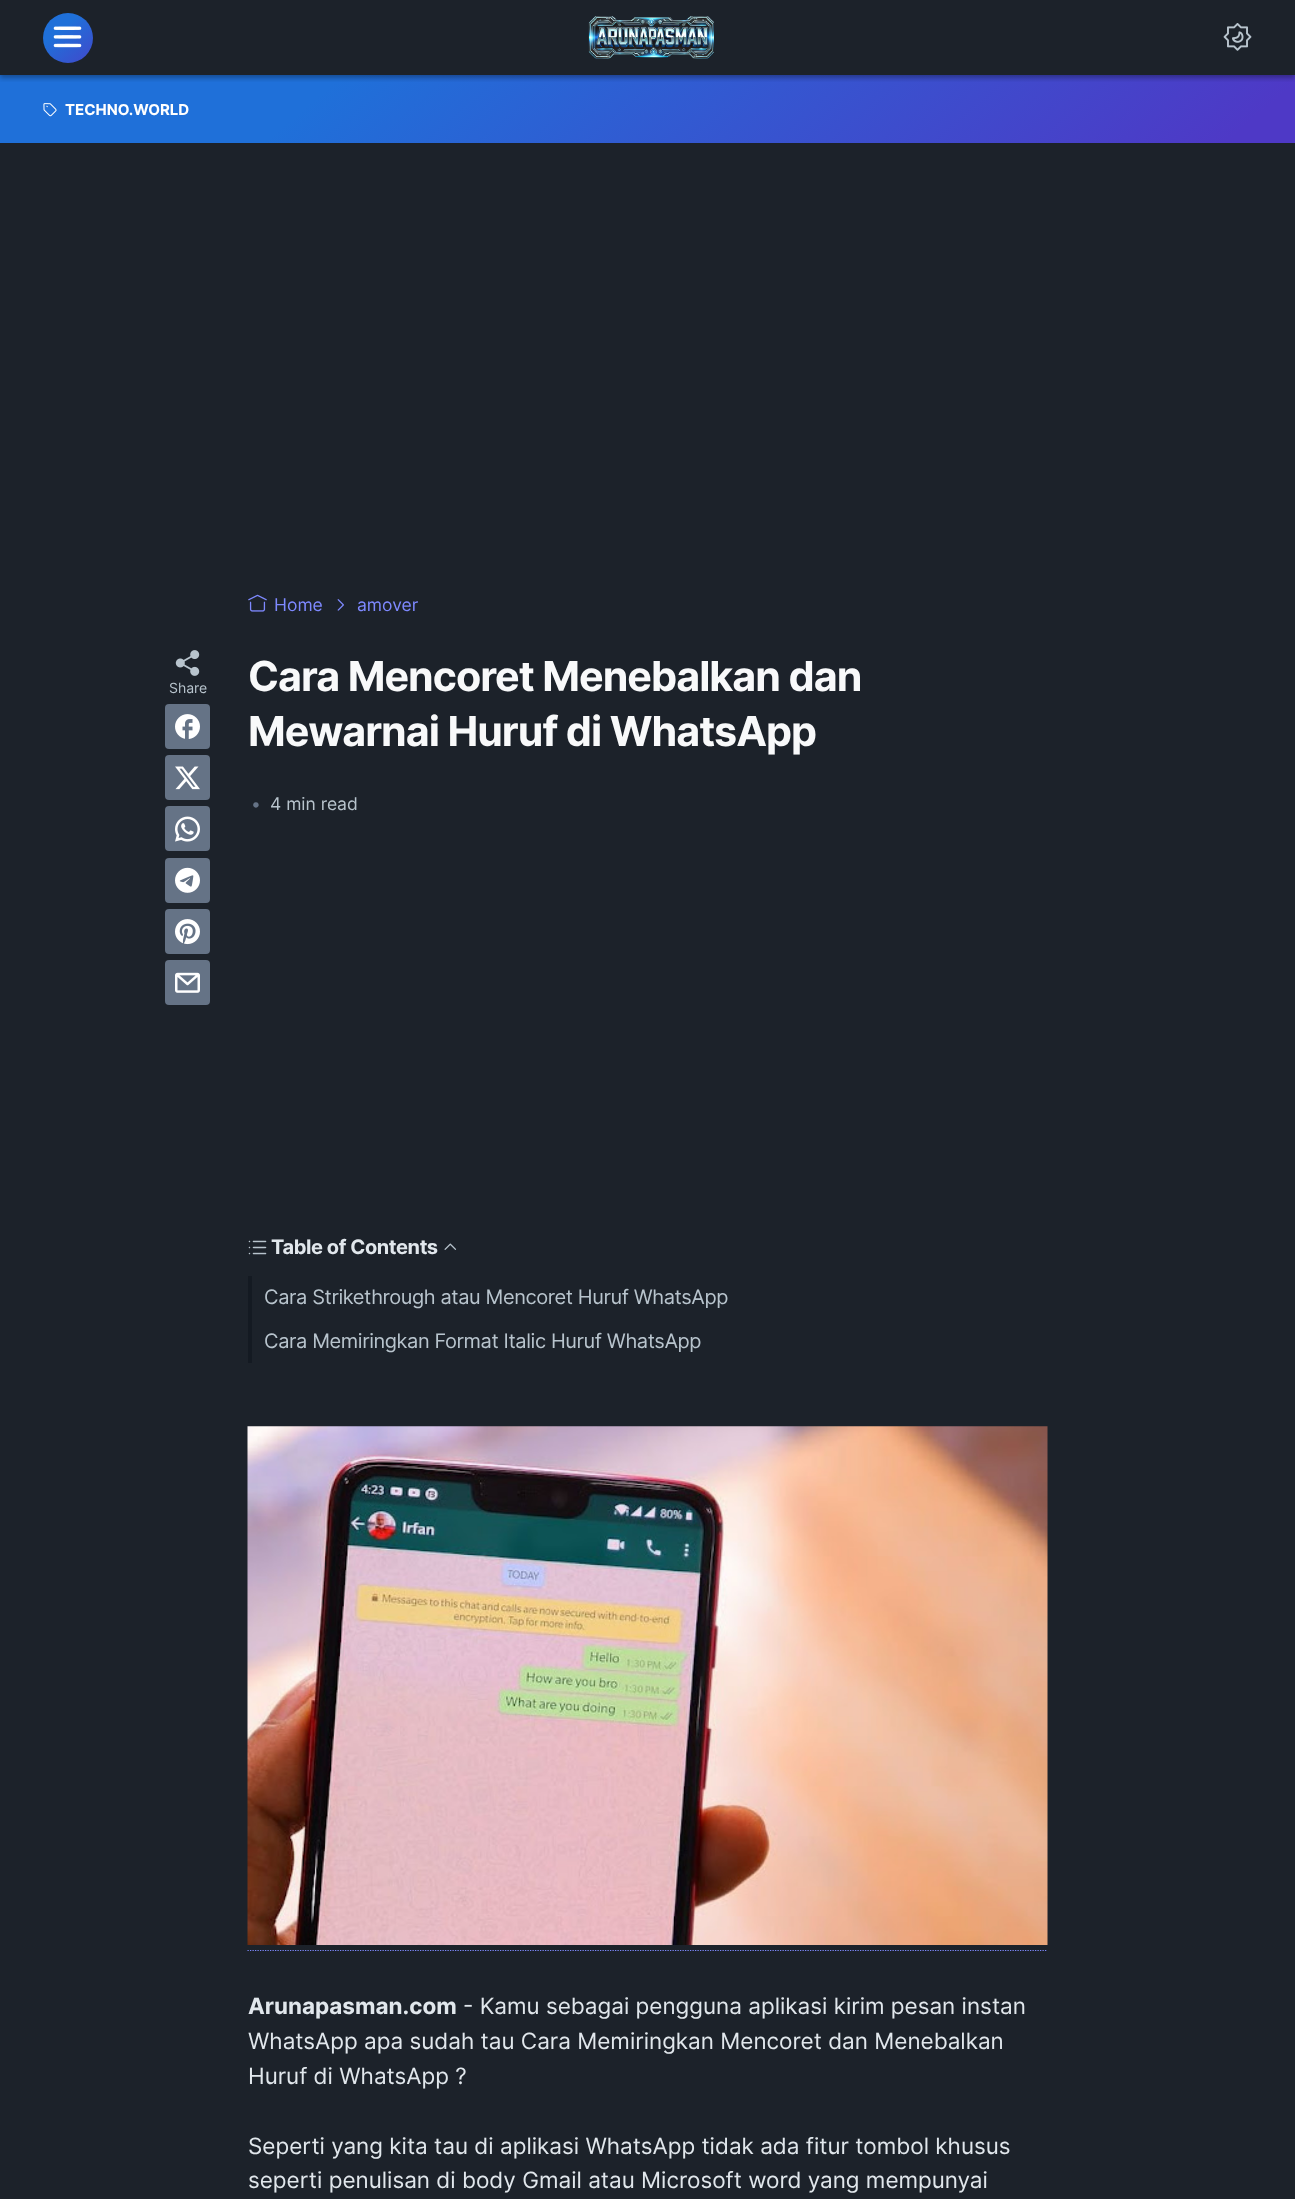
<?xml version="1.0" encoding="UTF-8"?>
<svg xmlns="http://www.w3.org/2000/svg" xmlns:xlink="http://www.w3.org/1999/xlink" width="1295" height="2199">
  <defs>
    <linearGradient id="g1" gradientUnits="userSpaceOnUse" x1="363" y1="-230" x2="932" y2="447"><stop offset="0.25" stop-color="#1f70d9" /><stop offset="0.95" stop-color="#4e39c6" /></linearGradient>
    <clipPath id="clip1"><rect x="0" y="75" width="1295" height="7" /></clipPath>
    <linearGradient id="g2" gradientUnits="userSpaceOnUse" x1="45" y1="11" x2="101" y2="78"><stop offset="0.28" stop-color="#1f70d9" /><stop offset="1" stop-color="#4e39c6" /></linearGradient>
  </defs>
  <rect width="100%" height="100%" fill="#1c222a" />
  <rect y="75" width="1295" height="68" fill="url(#g1)" />
  <g clip-path="url(#clip1)">
    <rect y="3" width="1295" height="75" fill="#000000" fill-opacity="0.31" filter="blur(2.5px)" />
  </g>
  <circle cx="68" cy="38" r="25" fill="url(#g2)" />
  <image x="53" y="26" width="29" height="22" xlink:href="image1.png" />
  <image x="588" y="16" width="126" height="43" xlink:href="image2.png" />
  <image x="1223" y="23" width="29" height="28" xlink:href="image3.png" />
  <image x="43" y="103" width="14" height="14" xlink:href="image4.png" />
  <image x="248" y="594" width="19" height="18" xlink:href="image5.png" />
  <image x="337" y="599" width="7" height="12" xlink:href="image6.png" />
  <image x="175" y="650" width="25" height="26" xlink:href="image7.png" />
  <rect x="165" y="704" width="45" height="45" rx="4" fill="#657386" />
  <image x="175" y="714" width="25" height="25" xlink:href="image8.png" />
  <rect x="165" y="755" width="45" height="45" rx="4" fill="#657386" />
  <image x="175" y="766" width="25" height="24" xlink:href="image9.png" />
  <rect x="165" y="806" width="45" height="45" rx="4" fill="#657386" />
  <image x="175" y="816" width="25" height="26" xlink:href="image10.png" />
  <rect x="165" y="858" width="45" height="45" rx="4" fill="#657386" />
  <image x="175" y="867" width="25" height="26" xlink:href="image11.png" />
  <rect x="165" y="909" width="45" height="45" rx="4" fill="#657386" />
  <image x="175" y="919" width="25" height="26" xlink:href="image12.png" />
  <rect x="165" y="960" width="45" height="45" rx="4" fill="#657386" />
  <image x="175" y="972" width="25" height="21" xlink:href="image13.png" />
  <image x="248" y="1240" width="19" height="15" xlink:href="image14.png" />
  <image x="444" y="1243" width="13" height="7" xlink:href="image15.png" />
  <rect x="248" y="1276" width="4" height="87" fill="#141a22" />
  <image x="247" y="1426" width="801" height="519" xlink:href="image16.png" />
  <path d="M 247.5 1950.5 h 800" fill="none" stroke="#7e89ff" stroke-width="1.2" stroke-dasharray="1.25 1.25" />
  <text x="65" y="115" style="font-family: Inter; font-size: 15px; font-weight: bold; fill: #ffffff">TECHNO.WORLD</text>
  <text x="274" y="611" style="font-family: Inter; font-size: 17.5px; fill: #7e89ff">Home</text>
  <text x="357" y="611" style="font-family: Inter; font-size: 17.5px; fill: #7e89ff">amover</text>
  <text x="169" y="693" style="font-family: Inter; font-size: 14px; fill: #b8c4cd">Share</text>
  <text x="248" y="691" style="font-family: Inter; font-size: 41.25px; font-weight: bold; letter-spacing: -1px; fill: #f8f9fa">Cara Mencoret Menebalkan dan</text>
  <text x="248" y="746" style="font-family: Inter; font-size: 41.25px; font-weight: bold; letter-spacing: -1px; fill: #f8f9fa">Mewarnai Huruf di WhatsApp</text>
  <text x="251" y="810" style="font-family: Inter; font-size: 17.5px; fill: #657386">•</text>
  <text x="270" y="810" style="font-family: Inter; font-size: 17.5px; fill: #b8c4cd">4 min read</text>
  <text x="271" y="1254" style="font-family: Inter; font-size: 20px; font-weight: bold; letter-spacing: -0.4px; fill: #e1e7ec">Table of Contents</text>
  <text x="264" y="1304" style="font-family: Inter; font-size: 20px; letter-spacing: -0.4px; fill: #b8c4cd">Cara Strikethrough atau Mencoret Huruf WhatsApp</text>
  <text x="264" y="1348" style="font-family: Inter; font-size: 20px; letter-spacing: -0.4px; fill: #b8c4cd">Cara Memiringkan Format Italic Huruf WhatsApp</text>
  <text x="248" y="2014" style="font-family: Inter; font-size: 22.5px; font-weight: bold; fill: #e1e7ec">Arunapasman.com</text>
  <text x="463" y="2014" style="font-family: Inter; font-size: 22.5px; fill: #e1e7ec">- Kamu sebagai pengguna aplikasi kirim pesan instan</text>
  <text x="248" y="2049" style="font-family: Inter; font-size: 22.5px; fill: #e1e7ec">WhatsApp apa sudah tau Cara Memiringkan Mencoret dan Menebalkan</text>
  <text x="248" y="2084" style="font-family: Inter; font-size: 22.5px; fill: #e1e7ec">Huruf di WhatsApp ?</text>
  <text x="248" y="2154" style="font-family: Inter; font-size: 22.5px; fill: #e1e7ec">Seperti yang kita tau di aplikasi WhatsApp tidak ada fitur tombol khusus</text>
  <text x="248" y="2188" style="font-family: Inter; font-size: 22.5px; fill: #e1e7ec">seperti penulisan di body Gmail atau Microsoft word yang mempunyai</text>
</svg>
